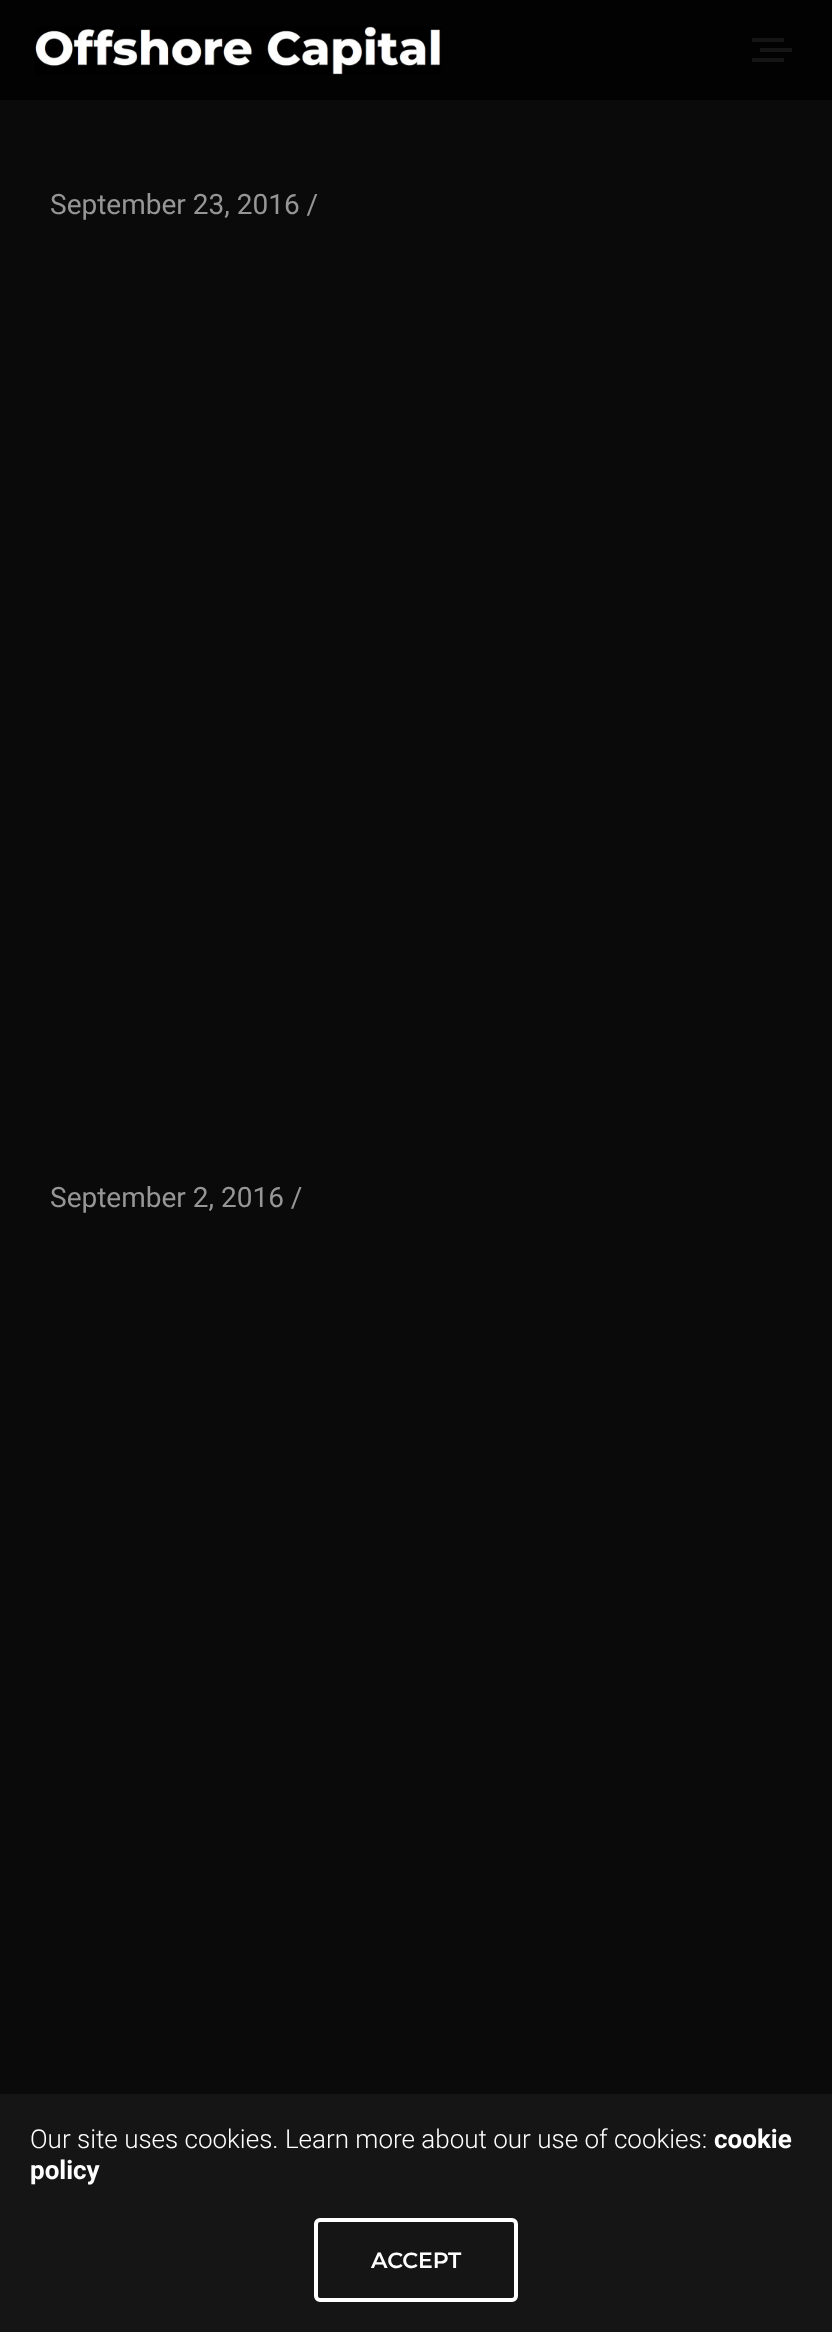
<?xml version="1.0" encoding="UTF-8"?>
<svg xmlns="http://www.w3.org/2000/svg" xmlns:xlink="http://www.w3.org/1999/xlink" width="832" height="2332">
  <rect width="100%" height="100%" fill="#0a0a0a" />
  <rect width="832" height="100" fill="#020202" />
  <image x="35" y="26" width="406" height="49" xlink:href="image1.png" />
  <rect x="752" y="38" width="32" height="4" fill="#151515" />
  <rect x="760" y="48" width="32" height="4" fill="#151515" />
  <rect x="752" y="58" width="32" height="4" fill="#151515" />
  <rect y="2094" width="832" height="238" fill="#151515" />
  <rect x="316" y="2220" width="200" height="80" rx="4" fill="none" stroke="#ffffff" stroke-width="4" />
  <text x="50" y="214" style="font-family: Roboto; font-size: 28px; fill: #969696">September 23, 2016 /</text>
  <text x="50" y="1207" style="font-family: Roboto; font-size: 28px; fill: #969696">September 2, 2016 /</text>
  <text x="30" y="2148" style="font-family: Roboto; font-size: 26px; font-weight: 300; fill: #ffffff">Our site uses cookies. Learn more about our use of cookies:</text>
  <text x="714" y="2148" style="font-family: Roboto; font-size: 26px; font-weight: bold; fill: #ffffff">cookie</text>
  <text x="30" y="2179" style="font-family: Roboto; font-size: 26px; font-weight: bold; fill: #ffffff">policy</text>
  <text x="371" y="2268" style="font-family: Montserrat; font-size: 22px; font-weight: 600; fill: #ffffff">ACCEPT</text>
</svg>
